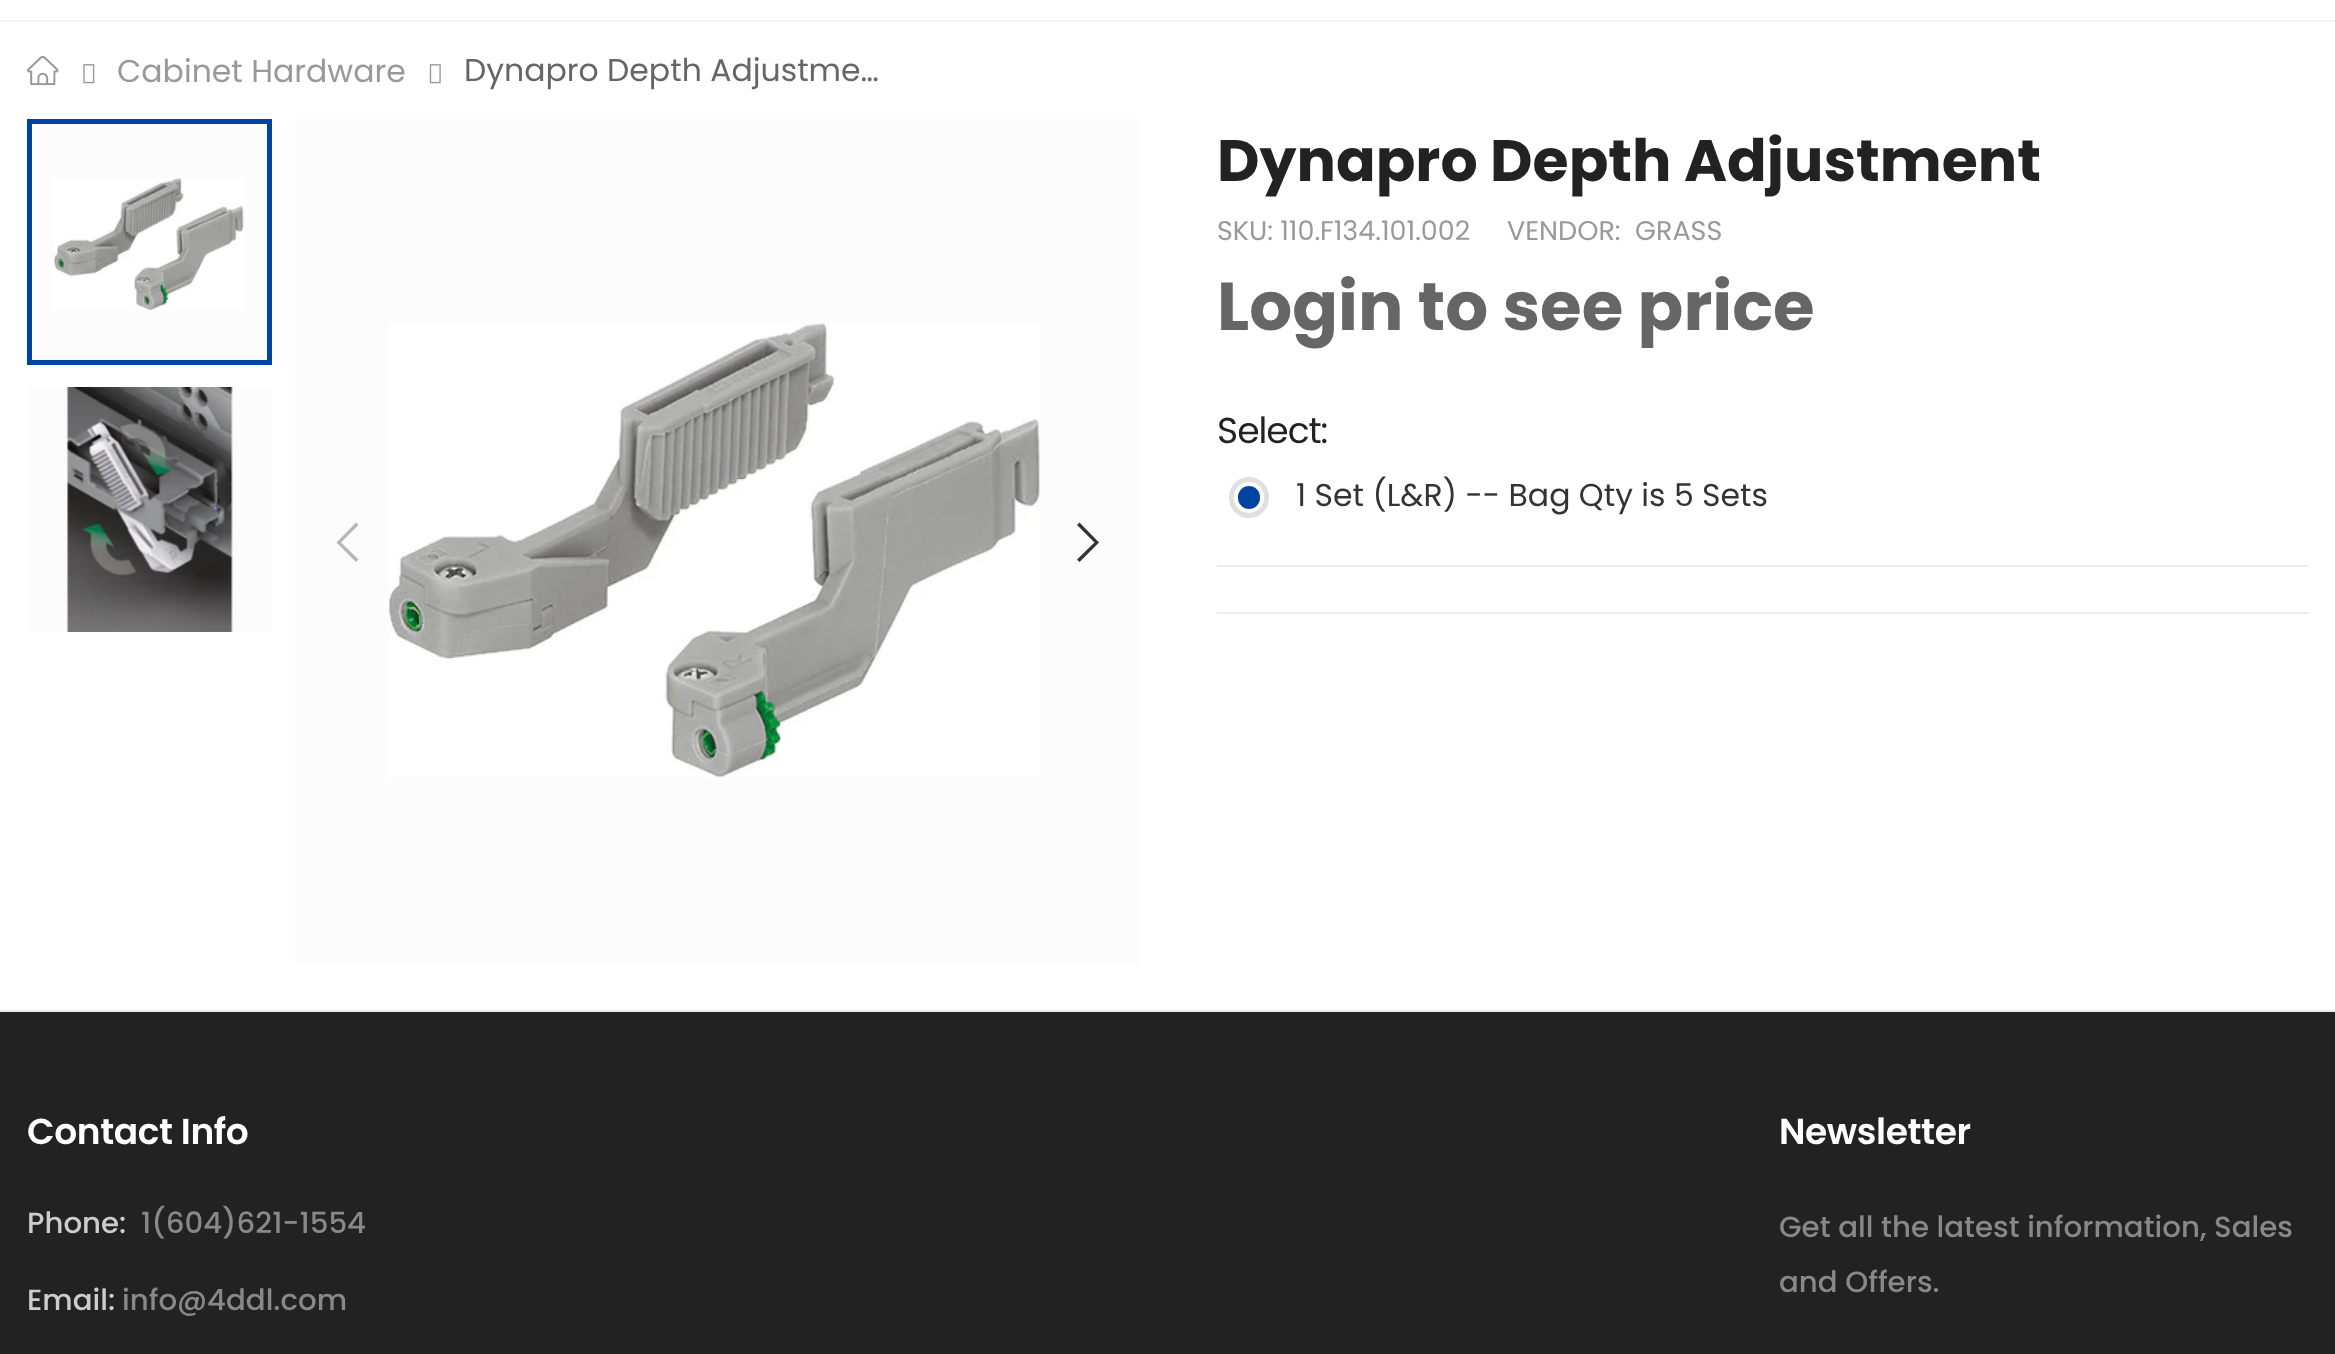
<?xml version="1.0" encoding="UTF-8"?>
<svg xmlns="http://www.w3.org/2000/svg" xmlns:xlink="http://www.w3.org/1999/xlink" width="2335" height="1354">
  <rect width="100%" height="100%" fill="#ffffff" />
  <rect y="20" width="2335" height="2" fill="#f4f4f4" />
  <image x="27" y="56" width="32" height="30" xlink:href="image1.png" />
  <image x="83" y="64" width="12" height="20" xlink:href="image2.png" />
  <image x="429" y="64" width="12" height="20" xlink:href="image3.png" />
  <rect x="32" y="124" width="235" height="236" fill="#fcfcfc" />
  <image x="53" y="178" width="191" height="132" xlink:href="image4.png" />
  <rect x="29.5" y="121.5" width="240" height="241" fill="none" stroke="#0044a3" stroke-width="5" />
  <rect x="27" y="387" width="245" height="245" fill="#fcfcfc" />
  <image x="66" y="387" width="167" height="245" xlink:href="image5.png" />
  <rect x="295" y="119" width="846" height="846" fill="#fcfcfc" />
  <image x="389" y="323" width="651" height="454" xlink:href="image6.png" />
  <path d="M 356 522.5 l -19.5 20 l 19.5 19.5 l 2.5 -2.5 l -17.5 -17 l 17.5 -17.5 z" fill="#b6b6b6" />
  <path d="M 1079.5 522.5 l -2.5 2.5 l 17.5 17.5 l -17.5 17 l 2.5 2.5 l 19.5 -19.5 z" fill="#333333" />
  <rect x="1231.5" y="479.5" width="35" height="36" rx="17.5" fill="none" stroke="#e0e0e0" stroke-width="5" />
  <rect x="1238" y="486" width="22" height="23" rx="11" fill="#0044a3" />
  <rect x="1217" y="565" width="1092" height="2" fill="#eeeeee" />
  <rect x="1217" y="612" width="1092" height="2" fill="#eeeeee" />
  <rect y="1012" width="2335" height="342" fill="#222222" />
  <rect y="1010" width="2335" height="2" fill="#ebebeb" />
  <text x="117" y="82" style="font-family: Poppins; font-size: 31.5px; fill: #999999">Cabinet Hardware</text>
  <text x="464" y="81" style="font-family: Poppins; font-size: 31.5px; fill: #666666">Dynapro Depth Adjustme…</text>
  <text x="1217" y="181" style="font-family: Poppins; font-size: 58.5px; font-weight: bold; fill: #222222">Dynapro Depth Adjustment</text>
  <text x="1217" y="240" style="font-family: Poppins; font-size: 27px; fill: #999999">SKU: 110.F134.101.002</text>
  <text x="1507" y="240" style="font-family: Poppins; font-size: 27px; fill: #999999">VENDOR:</text>
  <text x="1635" y="240" style="font-family: Poppins; font-size: 27px; fill: #999999">GRASS</text>
  <text x="1217" y="330" style="font-family: Poppins; font-size: 67.5px; font-weight: bold; fill: #666666">Login to see price</text>
  <text x="1217" y="443" style="font-family: Poppins; font-size: 36px; letter-spacing: -1px; fill: #222222">Select:</text>
  <text x="1296" y="506" style="font-family: Poppins; font-size: 31.5px; fill: #333333">1 Set (L&amp;R) -- Bag Qty is 5 Sets</text>
  <text x="27" y="1144" style="font-family: Poppins; font-size: 36px; font-weight: 600; letter-spacing: -0.4px; fill: #ffffff">Contact Info</text>
  <text x="27" y="1233" style="font-family: Poppins; font-size: 29.25px; font-weight: 500; fill: #cccccc">Phone:</text>
  <text x="141" y="1233" style="font-family: Poppins; font-size: 29.25px; font-weight: 500; fill: #888888">1(604)621-1554</text>
  <text x="27" y="1310" style="font-family: Poppins; font-size: 29.25px; font-weight: 500; fill: #cccccc">Email:</text>
  <text x="122" y="1310" style="font-family: Poppins; font-size: 29.25px; font-weight: 500; fill: #888888">info@4ddl.com</text>
  <text x="1779" y="1144" style="font-family: Poppins; font-size: 36px; font-weight: 600; letter-spacing: -0.4px; fill: #ffffff">Newsletter</text>
  <text x="1779" y="1237" style="font-family: Poppins; font-size: 29.25px; font-weight: 500; fill: #888888">Get all the latest information, Sales</text>
  <text x="1779" y="1292" style="font-family: Poppins; font-size: 29.25px; font-weight: 500; fill: #888888">and Offers.</text>
</svg>
